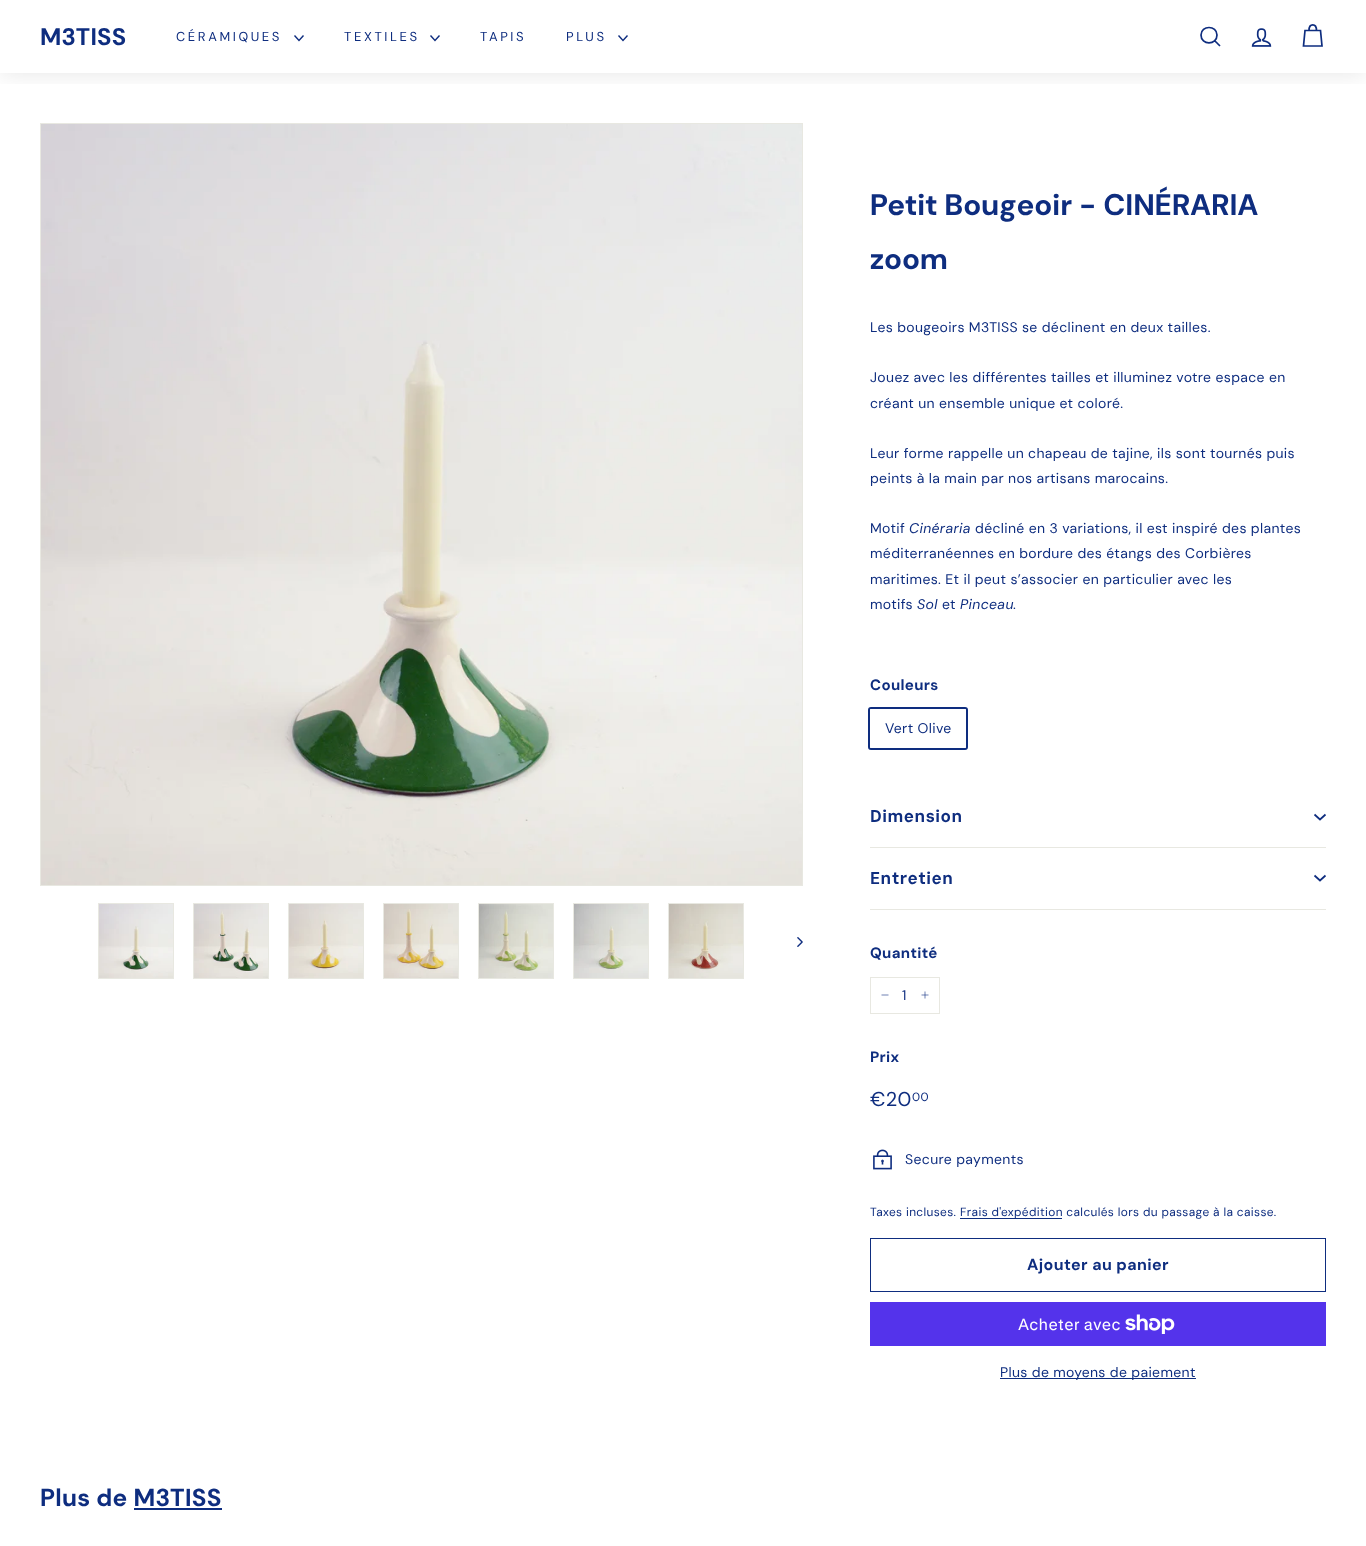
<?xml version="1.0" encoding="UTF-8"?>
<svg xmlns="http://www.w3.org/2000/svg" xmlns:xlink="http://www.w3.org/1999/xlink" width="1366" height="1546">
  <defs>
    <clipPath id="clip1"><rect x="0" y="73" width="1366" height="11" /></clipPath>
  </defs>
  <rect width="100%" height="100%" fill="#ffffff" />
  <g clip-path="url(#clip1)">
    <rect width="1366" height="73" fill="#000000" fill-opacity="0.1" filter="blur(12.5px)" />
  </g>
  <path d="M 294.5 35.5 l 4.5 5 l 4.5 -5" fill="none" stroke="#0e2d7f" stroke-width="1.4" />
  <path d="M 430.5 35.5 l 4.5 5 l 4.5 -5" fill="none" stroke="#0e2d7f" stroke-width="1.4" />
  <path d="M 618.5 35.5 l 4.5 5 l 4.5 -5" fill="none" stroke="#0e2d7f" stroke-width="1.4" />
  <path d="M 1217 35 c 0 10.5 -16 10.5 -16 0 c 0 -10 16 -10 16 0 m 3 11 l -5.5 -5.5" fill="none" stroke="#0e2d7f" stroke-width="1.7" />
  <image x="1251" y="28" width="21" height="19" xlink:href="image1.png" />
  <path d="M 1309 30.5 c 0 -7.5 7.5 -7.5 7.5 0 m -11.5 0 h 15.5 l 1.5 15.5 h -18.5 z" fill="none" stroke="#0e2d7f" stroke-width="1.7" />
  <rect x="40.5" y="123.5" width="762" height="762" fill="none" stroke="#e8e8e1" />
  <image x="41" y="124" width="761" height="761" xlink:href="image2.png" />
  <rect x="98.5" y="903.5" width="75" height="75" fill="none" stroke="#e8e8e1" />
  <image x="99" y="904" width="74" height="74" xlink:href="image3.png" />
  <rect x="193.5" y="903.5" width="75" height="75" fill="none" stroke="#e8e8e1" />
  <image x="194" y="904" width="74" height="74" xlink:href="image4.png" />
  <rect x="288.5" y="903.5" width="75" height="75" fill="none" stroke="#e8e8e1" />
  <image x="289" y="904" width="74" height="74" xlink:href="image5.png" />
  <rect x="383.5" y="903.5" width="75" height="75" fill="none" stroke="#e8e8e1" />
  <image x="384" y="904" width="74" height="74" xlink:href="image6.png" />
  <rect x="478.5" y="903.5" width="75" height="75" fill="none" stroke="#e8e8e1" />
  <image x="479" y="904" width="74" height="74" xlink:href="image7.png" />
  <rect x="573.5" y="903.5" width="75" height="75" fill="none" stroke="#e8e8e1" />
  <image x="574" y="904" width="74" height="74" xlink:href="image8.png" />
  <rect x="668.5" y="903.5" width="75" height="75" fill="none" stroke="#e8e8e1" />
  <image x="669" y="904" width="74" height="74" xlink:href="image9.png" />
  <image x="797" y="937" width="6" height="10" xlink:href="image10.png" />
  <rect x="869" y="708" width="98" height="41" rx="2" fill="none" stroke="#0e2d7f" stroke-width="2" />
  <rect x="870" y="709" width="96" height="39" rx="1" fill="#ffffff" />
  <rect x="870" y="847" width="456" height="1" fill="#e8e8e1" />
  <path d="M 1314.5 814.5 l 5.5 5 l 5.5 -5" fill="none" stroke="#0e2d7f" stroke-width="1.7" />
  <rect x="870" y="909" width="456" height="1" fill="#e8e8e1" />
  <path d="M 1314.5 875.5 l 5.5 5 l 5.5 -5" fill="none" stroke="#0e2d7f" stroke-width="1.7" />
  <rect x="870.5" y="977.5" width="69" height="36" fill="none" stroke="#e8e8e1" />
  <path d="M 888.5 995 h -7 m 43.5 -3.5 v 7 m 3.5 -3.5 h -7" fill="none" stroke="#0e2d7f" stroke-width="0.6" />
  <image x="873" y="1149" width="19" height="21" xlink:href="image11.png" />
  <rect x="960" y="1218" width="102" height="1" fill="#0e2d7f" />
  <rect x="870.5" y="1238.5" width="455" height="53" fill="none" stroke="#0e2d7f" />
  <rect x="870" y="1302" width="456" height="44" fill="#5433eb" />
  <image x="1125" y="1314" width="50" height="20" xlink:href="image12.png" />
  <rect x="1000" y="1378" width="196" height="1" fill="#0e2d7f" />
  <rect x="134" y="1508" width="88" height="2" fill="#0e2d7f" />
  <text x="40" y="45" style="font-family: 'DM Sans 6'; font-size: 24px; font-weight: bold; letter-spacing: 0.25px; fill: #0e2d7f">M3TISS</text>
  <text x="176" y="41" style="font-family: 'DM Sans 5'; font-size: 13px; letter-spacing: 2.6px; fill: #0e2d7f">CÉRAMIQUES</text>
  <text x="344" y="41" style="font-family: 'DM Sans 5'; font-size: 13px; letter-spacing: 2.6px; fill: #0e2d7f">TEXTILES</text>
  <text x="480" y="41" style="font-family: 'DM Sans 5'; font-size: 13px; letter-spacing: 2.6px; fill: #0e2d7f">TAPIS</text>
  <text x="566" y="41" style="font-family: 'DM Sans 5'; font-size: 13px; letter-spacing: 2.6px; fill: #0e2d7f">PLUS</text>
  <text x="870" y="215" style="font-family: 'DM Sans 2'; font-size: 29.75px; font-weight: bold; letter-spacing: 0.3px; fill: #0e2d7f">Petit Bougeoir - CINÉRARIA</text>
  <text x="870" y="269" style="font-family: 'DM Sans 2'; font-size: 29.75px; font-weight: bold; letter-spacing: 0.3px; fill: #0e2d7f">zoom</text>
  <text x="870" y="332" style="font-family: DM Sans; font-size: 14px; letter-spacing: 0.35px; fill: #0e2d7f">Les bougeoirs M3TISS se déclinent en deux tailles.</text>
  <text x="870" y="382" style="font-family: DM Sans; font-size: 14px; letter-spacing: 0.35px; fill: #0e2d7f">Jouez avec les différentes tailles et illuminez votre espace en</text>
  <text x="870" y="408" style="font-family: DM Sans; font-size: 14px; letter-spacing: 0.35px; fill: #0e2d7f">créant un ensemble unique et coloré.</text>
  <text x="870" y="458" style="font-family: DM Sans; font-size: 14px; letter-spacing: 0.35px; fill: #0e2d7f">Leur forme rappelle un chapeau de tajine, ils sont tournés puis</text>
  <text x="870" y="483" style="font-family: DM Sans; font-size: 14px; letter-spacing: 0.35px; fill: #0e2d7f">peints à la main par nos artisans marocains.</text>
  <text x="870" y="533" style="font-family: DM Sans; font-size: 14px; letter-spacing: 0.35px; fill: #0e2d7f">Motif</text>
  <text x="909" y="533" style="font-family: DM Sans; font-size: 14px; font-style: italic; letter-spacing: 0.35px; fill: #0e2d7f">Cinéraria</text>
  <text x="975" y="533" style="font-family: DM Sans; font-size: 14px; letter-spacing: 0.35px; fill: #0e2d7f">décliné en 3 variations, il est inspiré des plantes</text>
  <text x="870" y="558" style="font-family: DM Sans; font-size: 14px; letter-spacing: 0.35px; fill: #0e2d7f">méditerranéennes en bordure des étangs des Corbières</text>
  <text x="870" y="584" style="font-family: DM Sans; font-size: 14px; letter-spacing: 0.35px; fill: #0e2d7f">maritimes. Et il peut s’associer en particulier avec les</text>
  <text x="870" y="609" style="font-family: DM Sans; font-size: 14px; letter-spacing: 0.35px; fill: #0e2d7f">motifs</text>
  <text x="917" y="609" style="font-family: DM Sans; font-size: 14px; font-style: italic; letter-spacing: 0.35px; fill: #0e2d7f">Sol</text>
  <text x="942" y="609" style="font-family: DM Sans; font-size: 14px; letter-spacing: 0.35px; fill: #0e2d7f">et</text>
  <text x="960" y="609" style="font-family: DM Sans; font-size: 14px; font-style: italic; letter-spacing: 0.35px; fill: #0e2d7f">Pinceau</text>
  <text x="1013" y="609" style="font-family: DM Sans; font-size: 14px; letter-spacing: 0.35px; fill: #0e2d7f">.</text>
  <text x="870" y="690" style="font-family: 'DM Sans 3'; font-size: 15px; font-weight: bold; letter-spacing: 0.35px; fill: #0e2d7f">Couleurs</text>
  <text x="885" y="733" style="font-family: DM Sans; font-size: 14px; letter-spacing: 0.35px; fill: #0e2d7f">Vert Olive</text>
  <text x="870" y="822" style="font-family: 'DM Sans 5'; font-size: 17px; font-weight: bold; letter-spacing: 0.5px; fill: #0e2d7f">Dimension</text>
  <text x="870" y="884" style="font-family: 'DM Sans 5'; font-size: 17px; font-weight: bold; letter-spacing: 0.5px; fill: #0e2d7f">Entretien</text>
  <text x="870" y="958" style="font-family: 'DM Sans 3'; font-size: 15px; font-weight: bold; letter-spacing: 0.35px; fill: #0e2d7f">Quantité</text>
  <text x="902" y="1000" style="font-family: DM Sans; font-size: 14px; letter-spacing: 0.35px; fill: #0e2d7f">1</text>
  <text x="870" y="1062" style="font-family: 'DM Sans 3'; font-size: 15px; font-weight: bold; letter-spacing: 0.35px; fill: #0e2d7f">Prix</text>
  <text x="870" y="1106" style="font-family: 'DM Sans 2'; font-size: 20px; letter-spacing: 0.35px; fill: #0e2d7f">€20</text>
  <text x="912" y="1101" style="font-family: 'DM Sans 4'; font-size: 12px; letter-spacing: 0.35px; fill: #0e2d7f">00</text>
  <text x="905" y="1164" style="font-family: DM Sans; font-size: 14px; letter-spacing: 0.35px; fill: #0e2d7f">Secure payments</text>
  <text x="870" y="1216" style="font-family: 'DM Sans 3'; font-size: 11.9px; letter-spacing: 0.35px; fill: #0e2d7f">Taxes incluses.</text>
  <text x="960" y="1216" style="font-family: 'DM Sans 3'; font-size: 11.9px; letter-spacing: 0.35px; fill: #0e2d7f">Frais d'expédition calculés lors du passage à la caisse.</text>
  <text x="1027" y="1270" style="font-family: 'DM Sans 4'; font-size: 16px; font-weight: bold; letter-spacing: 0.4px; fill: #0e2d7f">Ajouter au panier</text>
  <text x="1018" y="1330" style="font-family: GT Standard; font-size: 16px; letter-spacing: 0.35px; fill: #ffffff">Acheter avec</text>
  <text x="1000" y="1377" style="font-family: DM Sans; font-size: 14px; letter-spacing: 0.35px; fill: #0e2d7f">Plus de moyens de paiement</text>
  <text x="40" y="1506" style="font-family: DM Sans; font-size: 24.5px; font-weight: bold; letter-spacing: 0.25px; fill: #0e2d7f">Plus de M3TISS</text>
</svg>
